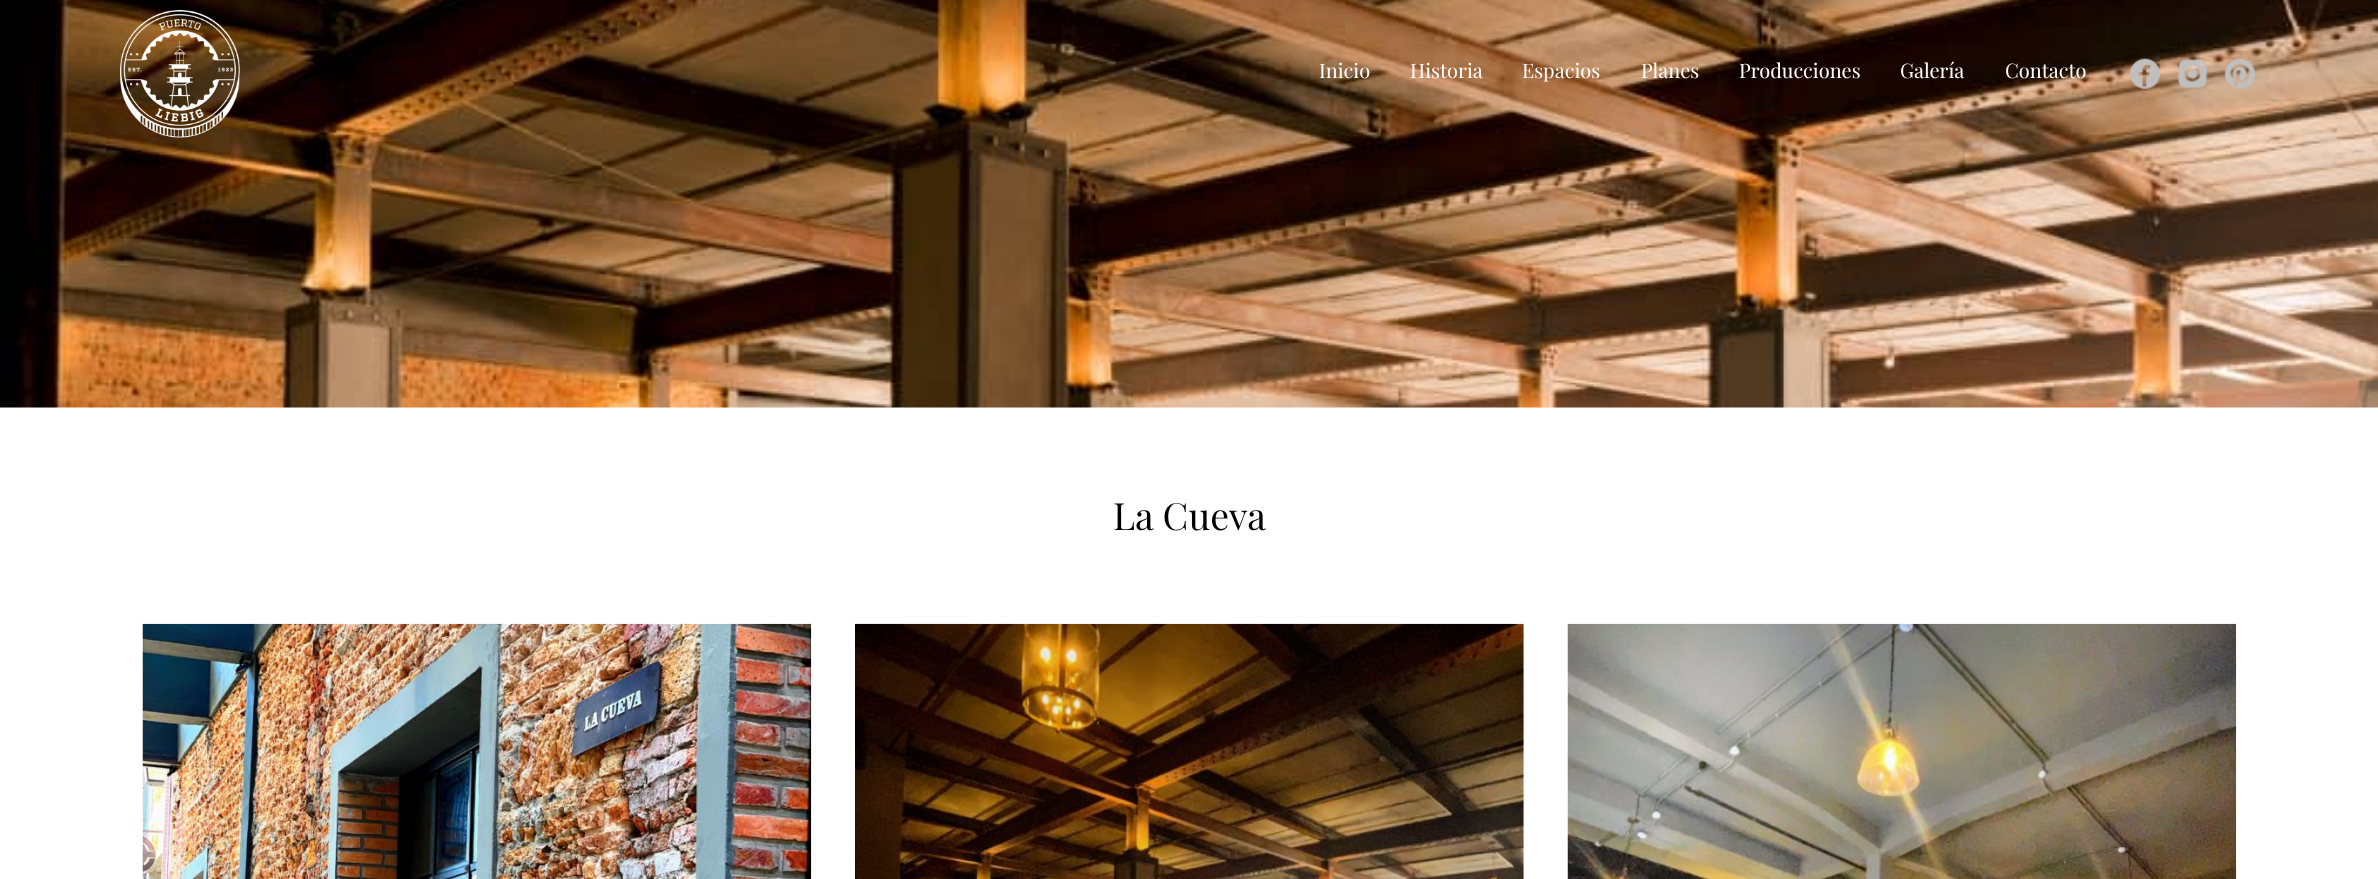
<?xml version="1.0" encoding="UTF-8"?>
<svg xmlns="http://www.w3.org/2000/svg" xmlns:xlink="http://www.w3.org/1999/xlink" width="2378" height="879">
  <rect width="100%" height="100%" fill="#ffffff" />
  <image x="0" y="0" width="2378" height="408" xlink:href="image1.png" />
  <image x="120" y="10" width="120" height="128" xlink:href="image2.png" />
  <image x="2129" y="58" width="32" height="31" xlink:href="image3.png" />
  <image x="2177" y="58" width="31" height="31" xlink:href="image4.png" />
  <image x="2224" y="58" width="32" height="31" xlink:href="image5.png" />
  <image x="142" y="623" width="670" height="256" xlink:href="image6.png" />
  <image x="855" y="623" width="669" height="256" xlink:href="image7.png" />
  <image x="1567" y="623" width="670" height="256" xlink:href="image8.png" />
  <text x="1319" y="78" style="font-family: Playfair Display; font-size: 20px; fill: #ffffff">Inicio</text>
  <text x="1410" y="78" style="font-family: Playfair Display; font-size: 20px; fill: #ffffff">Historia</text>
  <text x="1522" y="78" style="font-family: Playfair Display; font-size: 20px; fill: #ffffff">Espacios</text>
  <text x="1641" y="78" style="font-family: Playfair Display; font-size: 20px; fill: #ffffff">Planes</text>
  <text x="1739" y="78" style="font-family: Playfair Display; font-size: 20px; fill: #ffffff">Producciones</text>
  <text x="1900" y="78" style="font-family: Playfair Display; font-size: 20px; fill: #ffffff">Galería</text>
  <text x="2005" y="78" style="font-family: Playfair Display; font-size: 20px; fill: #ffffff">Contacto</text>
  <text x="1113" y="530" style="font-family: Playfair Display; font-size: 37.5px; fill: #000000">La Cueva</text>
</svg>
